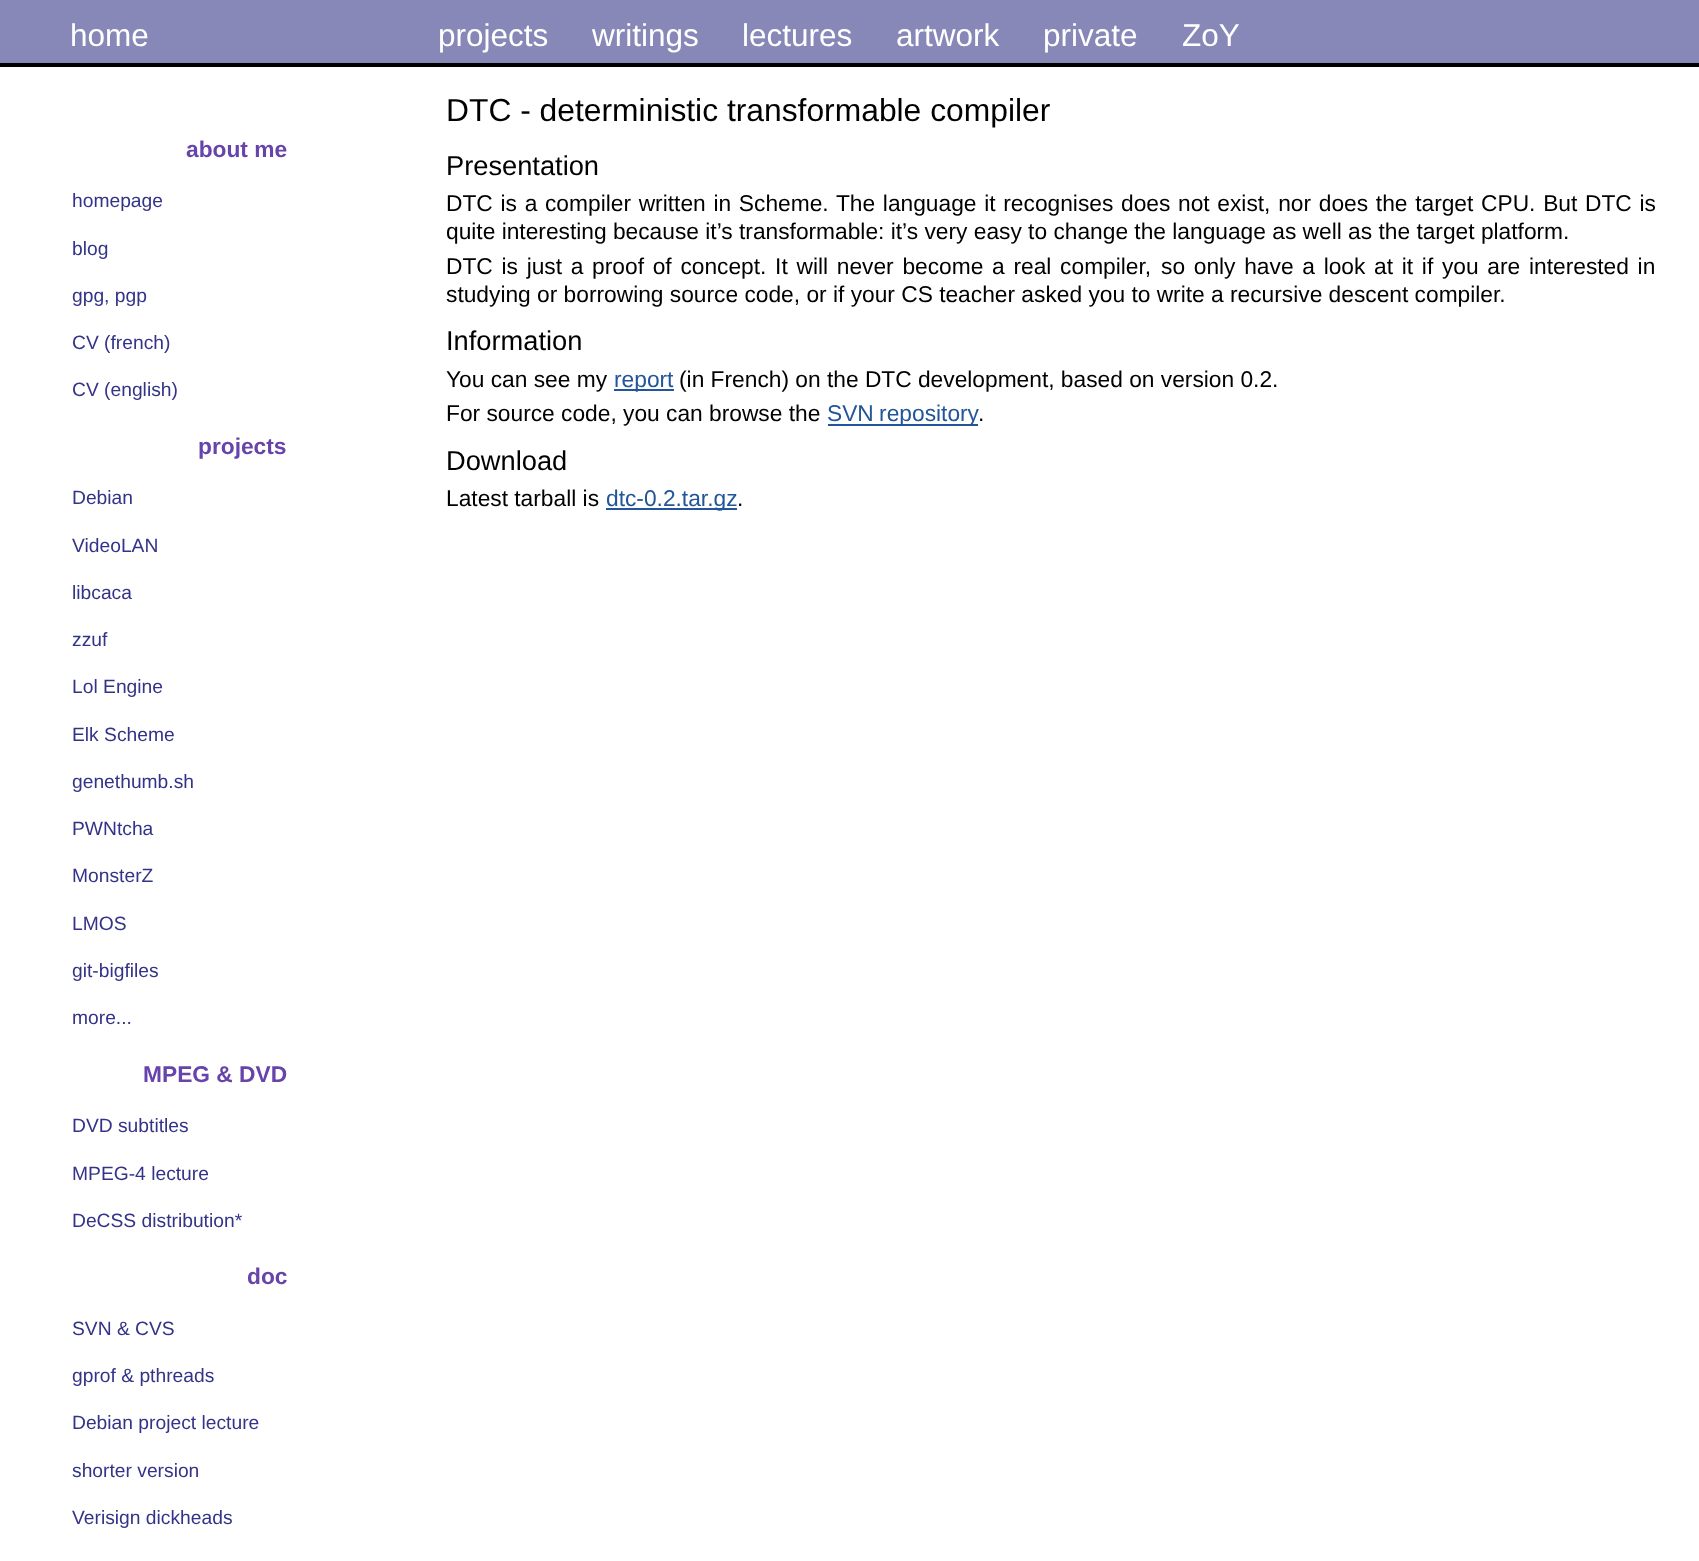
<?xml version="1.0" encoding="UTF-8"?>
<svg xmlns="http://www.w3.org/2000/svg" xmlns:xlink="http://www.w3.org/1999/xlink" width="1699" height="1561">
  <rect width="100%" height="100%" fill="#ffffff" />
  <rect width="1699" height="63" fill="#8888b8" />
  <rect y="63" width="1699" height="4" fill="#000000" />
  <rect x="614" y="389" width="60" height="2" fill="#225599" />
  <rect x="828" y="424" width="150" height="2" fill="#225599" />
  <rect x="606" y="508" width="131" height="2" fill="#225599" />
  <text x="70" y="46" style="font-family: Liberation Sans; font-size: 31.5px; fill: #ffffff">home</text>
  <text x="438" y="46" style="font-family: Liberation Sans; font-size: 31.5px; fill: #ffffff">projects</text>
  <text x="592" y="46" style="font-family: Liberation Sans; font-size: 31.5px; fill: #ffffff">writings</text>
  <text x="742" y="46" style="font-family: Liberation Sans; font-size: 31.5px; fill: #ffffff">lectures</text>
  <text x="896" y="46" style="font-family: Liberation Sans; font-size: 31.5px; fill: #ffffff">artwork</text>
  <text x="1043" y="46" style="font-family: Liberation Sans; font-size: 31.5px; fill: #ffffff">private</text>
  <text x="1182" y="46" style="font-family: Liberation Sans; font-size: 31.5px; fill: #ffffff">ZoY</text>
  <text x="446" y="121" style="font-family: Liberation Sans; font-size: 31.8px; fill: #000000">DTC - deterministic transformable compiler</text>
  <text x="186" y="157" style="font-family: Liberation Sans; font-size: 22.75px; font-weight: bold; fill: #6644aa">about me</text>
  <text x="72" y="207" style="font-family: Liberation Sans; font-size: 19.25px; fill: #333388">homepage</text>
  <text x="72" y="255" style="font-family: Liberation Sans; font-size: 19.25px; fill: #333388">blog</text>
  <text x="72" y="302" style="font-family: Liberation Sans; font-size: 19.25px; fill: #333388">gpg, pgp</text>
  <text x="72" y="349" style="font-family: Liberation Sans; font-size: 19.25px; fill: #333388">CV (french)</text>
  <text x="72" y="396" style="font-family: Liberation Sans; font-size: 19.25px; fill: #333388">CV (english)</text>
  <text x="198" y="454" style="font-family: Liberation Sans; font-size: 22.75px; font-weight: bold; fill: #6644aa">projects</text>
  <text x="72" y="504" style="font-family: Liberation Sans; font-size: 19.25px; fill: #333388">Debian</text>
  <text x="72" y="552" style="font-family: Liberation Sans; font-size: 19.25px; fill: #333388">VideoLAN</text>
  <text x="72" y="599" style="font-family: Liberation Sans; font-size: 19.25px; fill: #333388">libcaca</text>
  <text x="72" y="646" style="font-family: Liberation Sans; font-size: 19.25px; fill: #333388">zzuf</text>
  <text x="72" y="693" style="font-family: Liberation Sans; font-size: 19.25px; fill: #333388">Lol Engine</text>
  <text x="72" y="741" style="font-family: Liberation Sans; font-size: 19.25px; fill: #333388">Elk Scheme</text>
  <text x="72" y="788" style="font-family: Liberation Sans; font-size: 19.25px; fill: #333388">genethumb.sh</text>
  <text x="72" y="835" style="font-family: Liberation Sans; font-size: 19.25px; fill: #333388">PWNtcha</text>
  <text x="72" y="882" style="font-family: Liberation Sans; font-size: 19.25px; fill: #333388">MonsterZ</text>
  <text x="72" y="930" style="font-family: Liberation Sans; font-size: 19.25px; fill: #333388">LMOS</text>
  <text x="72" y="977" style="font-family: Liberation Sans; font-size: 19.25px; fill: #333388">git-bigfiles</text>
  <text x="72" y="1024" style="font-family: Liberation Sans; font-size: 19.25px; fill: #333388">more...</text>
  <text x="143" y="1082" style="font-family: Liberation Sans; font-size: 22.75px; font-weight: bold; fill: #6644aa">MPEG &amp; DVD</text>
  <text x="72" y="1132" style="font-family: Liberation Sans; font-size: 19.25px; fill: #333388">DVD subtitles</text>
  <text x="72" y="1180" style="font-family: Liberation Sans; font-size: 19.25px; fill: #333388">MPEG-4 lecture</text>
  <text x="72" y="1227" style="font-family: Liberation Sans; font-size: 19.25px; fill: #333388">DeCSS distribution*</text>
  <text x="247" y="1284" style="font-family: Liberation Sans; font-size: 22.75px; font-weight: bold; fill: #6644aa">doc</text>
  <text x="72" y="1335" style="font-family: Liberation Sans; font-size: 19.25px; fill: #333388">SVN &amp; CVS</text>
  <text x="72" y="1382" style="font-family: Liberation Sans; font-size: 19.25px; fill: #333388">gprof &amp; pthreads</text>
  <text x="72" y="1429" style="font-family: Liberation Sans; font-size: 19.25px; fill: #333388">Debian project lecture</text>
  <text x="72" y="1477" style="font-family: Liberation Sans; font-size: 19.25px; fill: #333388">shorter version</text>
  <text x="72" y="1524" style="font-family: Liberation Sans; font-size: 19.25px; fill: #333388">Verisign dickheads</text>
  <text x="446" y="175" style="font-family: Liberation Sans; font-size: 27.25px; fill: #000000">Presentation</text>
  <text x="446" y="211" word-spacing="1.4" style="font-family: Liberation Sans; font-size: 22.75px; fill: #000000">DTC is a compiler written in Scheme. The language it recognises does</text>
  <text x="1178" y="211" word-spacing="1.4" style="font-family: Liberation Sans; font-size: 22.75px; fill: #000000">not exist, nor does the target CPU. But DTC is</text>
  <text x="446" y="239" style="font-family: Liberation Sans; font-size: 22.75px; fill: #000000">quite interesting because it’s transformable: it’s very easy to change the language as well as the target platform.</text>
  <text x="446" y="274" word-spacing="2.4" style="font-family: Liberation Sans; font-size: 22.75px; fill: #000000">DTC is just a proof of concept. It will never become a real compiler,</text>
  <text x="1161" y="274" word-spacing="2.4" style="font-family: Liberation Sans; font-size: 22.75px; fill: #000000">so only have a look at it if you are interested in</text>
  <text x="446" y="302" style="font-family: Liberation Sans; font-size: 22.75px; fill: #000000">studying or borrowing source code, or if your CS teacher asked you to write a recursive descent compiler.</text>
  <text x="446" y="350" style="font-family: Liberation Sans; font-size: 27.25px; fill: #000000">Information</text>
  <text x="446" y="387" style="font-family: Liberation Sans; font-size: 22.75px; fill: #000000">You can see my</text>
  <text x="614" y="387" style="font-family: Liberation Sans; font-size: 22.75px; fill: #225599">report</text>
  <text x="679" y="387" style="font-family: Liberation Sans; font-size: 22.75px; fill: #000000">(in French) on the DTC development, based on version 0.2.</text>
  <text x="446" y="421" style="font-family: Liberation Sans; font-size: 22.75px; fill: #000000">For source code, you can browse the</text>
  <text x="827" y="421" word-spacing="-1" style="font-family: Liberation Sans; font-size: 22.75px; fill: #225599">SVN repository</text>
  <text x="978" y="421" style="font-family: Liberation Sans; font-size: 22.75px; fill: #000000">.</text>
  <text x="446" y="470" style="font-family: Liberation Sans; font-size: 27.25px; fill: #000000">Download</text>
  <text x="446" y="506" style="font-family: Liberation Sans; font-size: 22.75px; fill: #000000">Latest tarball is</text>
  <text x="606" y="506" style="font-family: Liberation Sans; font-size: 22.75px; fill: #225599">dtc-0.2.tar.gz</text>
  <text x="737" y="506" style="font-family: Liberation Sans; font-size: 22.75px; fill: #000000">.</text>
</svg>
